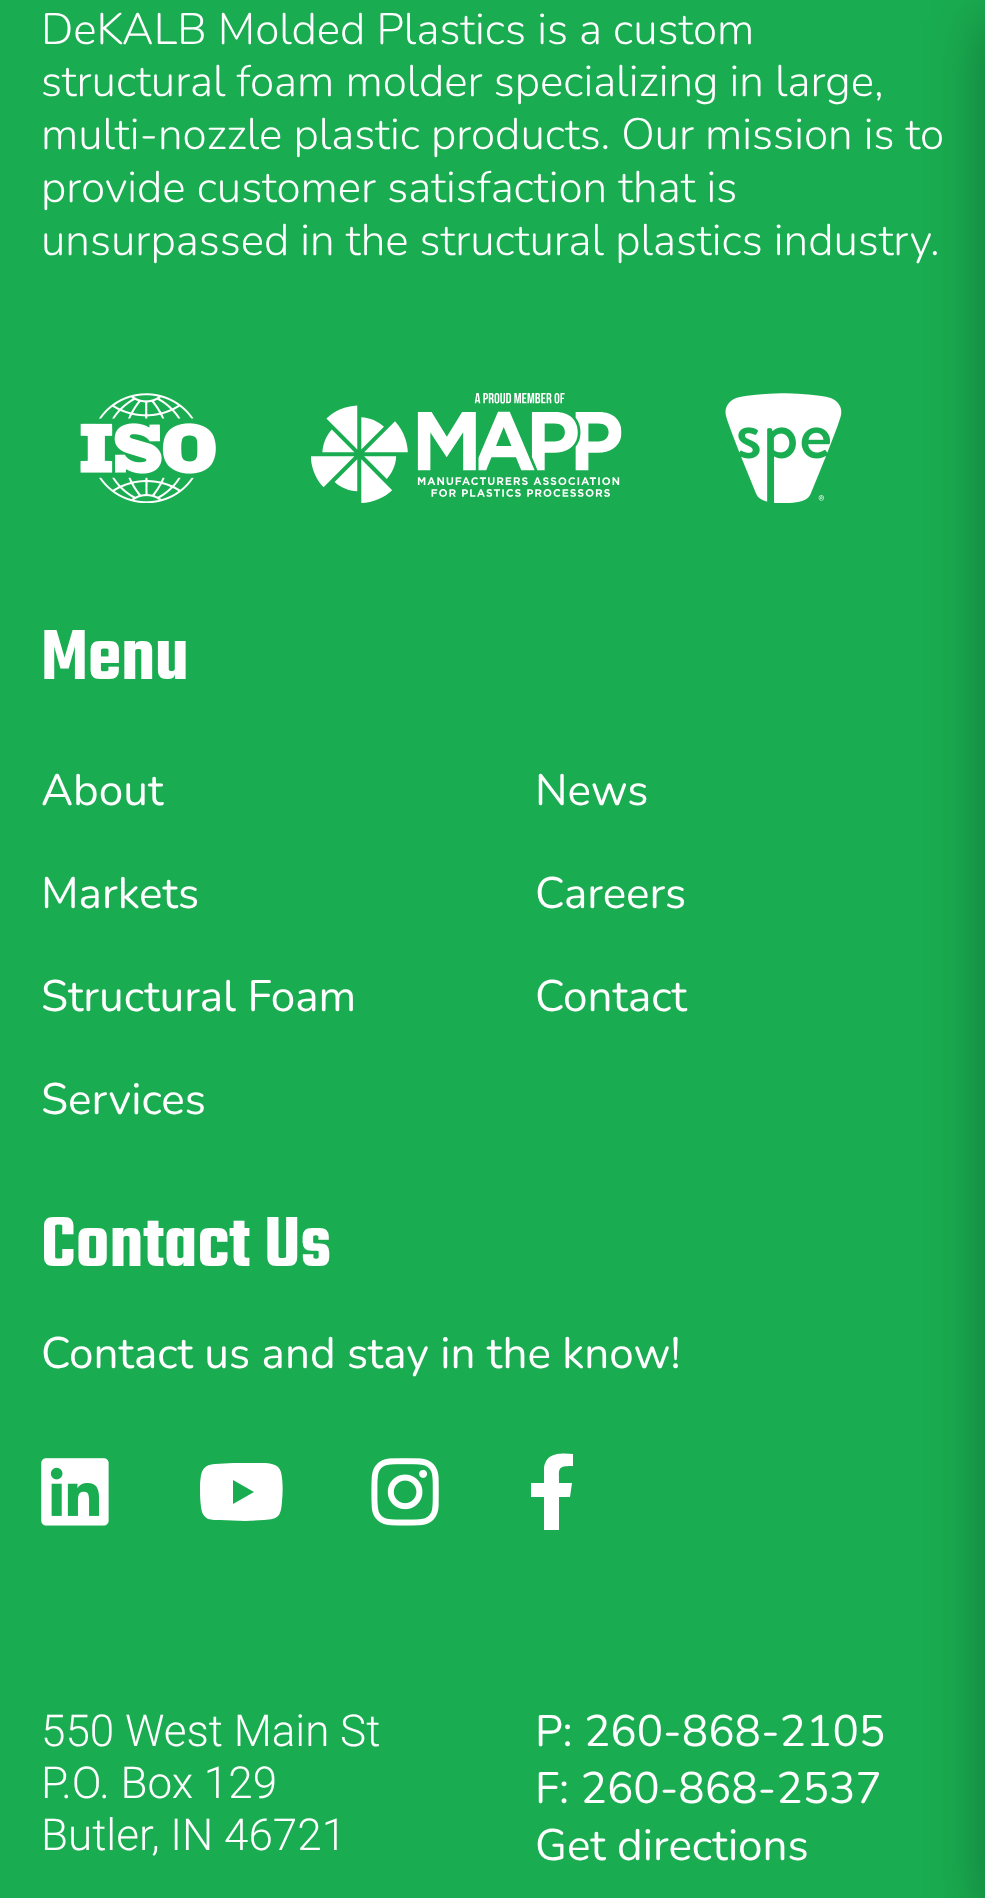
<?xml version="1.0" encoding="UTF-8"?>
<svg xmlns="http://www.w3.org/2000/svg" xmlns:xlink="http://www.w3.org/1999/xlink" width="985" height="1898">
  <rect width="100%" height="100%" fill="#1aac50" />
  <rect x="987" y="19" width="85" height="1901" fill="#000000" fill-opacity="0.34" filter="blur(29px)" />
  <image x="80" y="393" width="136" height="110" xlink:href="image1.png" />
  <image x="311" y="393" width="311" height="110" xlink:href="image2.png" />
  <image x="725" y="393" width="117" height="110" xlink:href="image3.png" />
  <image x="41" y="1458" width="68" height="68" xlink:href="image4.png" />
  <path d="M 281 1472 c 2 9 2 20 1 29 c -1 15 -3 18 -18 19 l -19 1 l -25 -1 c -4 0 -8 0 -12 -1 c -3 -2 -5 -4 -6 -7 c -2 -8 -2 -19 -2 -26 c 1 -13 1 -21 15 -22 l 18 -1 h 25 c 8 0 20 -1 23 9 z m -48 32 l 21 -12 l -21 -12 z" fill="#ffffff" />
  <image x="371" y="1458" width="68" height="68" xlink:href="image5.png" />
  <path d="M 570 1497 h -11 v 33 h -15 v -33 h -13 v -14 h 13 v -15 c 2 -16 17 -15 29 -14 v 12 c -16 0 -14 2 -14 17 h 13 z" fill="#ffffff" />
  <text x="41" y="44" style="font-family: Nunito; font-size: 44px; font-weight: 300; fill: #fffefe">DeKALB Molded Plastics is a custom</text>
  <text x="41" y="96" style="font-family: Nunito; font-size: 44px; font-weight: 300; fill: #fffefe">structural foam molder specializing in large,</text>
  <text x="41" y="149" style="font-family: Nunito; font-size: 44px; font-weight: 300; fill: #fffefe">multi-nozzle plastic products. Our mission is to</text>
  <text x="41" y="202" style="font-family: Nunito; font-size: 44px; font-weight: 300; fill: #fffefe">provide customer satisfaction that is</text>
  <text x="41" y="255" style="font-family: Nunito; font-size: 44px; font-weight: 300; fill: #fffefe">unsurpassed in the structural plastics industry.</text>
  <text x="41" y="679" style="font-family: Teko; font-size: 77px; font-weight: 600; fill: #fffefe">Menu</text>
  <text x="41" y="805" style="font-family: Nunito; font-size: 44px; fill: #fffefe">About</text>
  <text x="535" y="805" style="font-family: Nunito; font-size: 44px; fill: #fffefe">News</text>
  <text x="41" y="908" style="font-family: Nunito; font-size: 44px; fill: #fffefe">Markets</text>
  <text x="535" y="908" style="font-family: Nunito; font-size: 44px; fill: #fffefe">Careers</text>
  <text x="41" y="1011" style="font-family: Nunito; font-size: 44px; fill: #fffefe">Structural Foam</text>
  <text x="535" y="1011" style="font-family: Nunito; font-size: 44px; fill: #fffefe">Contact</text>
  <text x="41" y="1114" style="font-family: Nunito; font-size: 44px; fill: #fffefe">Services</text>
  <text x="41" y="1266" style="font-family: Teko; font-size: 77px; font-weight: 600; fill: #fffefe">Contact Us</text>
  <text x="41" y="1368" style="font-family: Nunito; font-size: 44px; fill: #fffefe">Contact us and stay in the know!</text>
  <text x="41" y="1746" style="font-family: Roboto; font-size: 44px; font-weight: 300; fill: #fffefe">550 West Main St</text>
  <text x="41" y="1798" style="font-family: Roboto; font-size: 44px; font-weight: 300; fill: #fffefe">P.O. Box 129</text>
  <text x="41" y="1850" style="font-family: Roboto; font-size: 44px; font-weight: 300; fill: #fffefe">Butler, IN 46721</text>
  <text x="535" y="1746" style="font-family: Nunito; font-size: 44px; fill: #fffefe">P: 260-868-2105</text>
  <text x="535" y="1803" style="font-family: Nunito; font-size: 44px; fill: #fffefe">F: 260-868-2537</text>
  <text x="535" y="1860" style="font-family: Nunito; font-size: 44px; fill: #fffefe">Get directions</text>
</svg>
